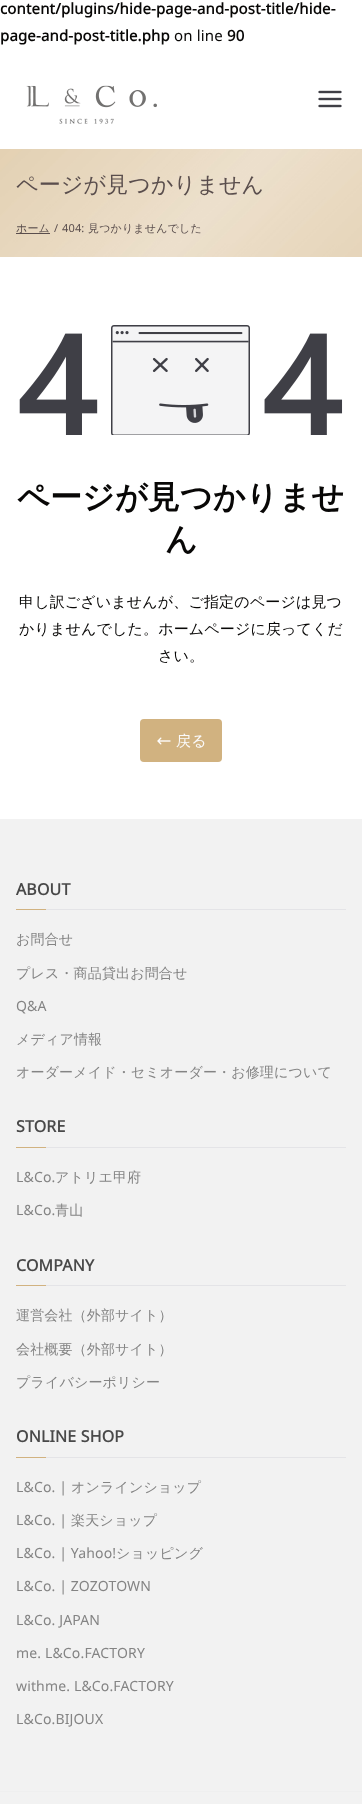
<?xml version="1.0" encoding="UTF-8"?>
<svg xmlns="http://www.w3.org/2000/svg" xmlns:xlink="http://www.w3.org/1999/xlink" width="362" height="1804">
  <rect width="100%" height="100%" fill="#ffffff" />
  <image x="26" y="85" width="131" height="39" xlink:href="image1.png" />
  <image x="318" y="90" width="24" height="18" xlink:href="image2.png" />
  <image x="0" y="149" width="362" height="108" xlink:href="image3.png" />
  <rect x="16" y="233" width="34" height="1" fill="#5a4e4d" />
  <image x="19" y="325" width="324" height="110" xlink:href="image4.png" />
  <rect x="140" y="719" width="82" height="43" rx="4" fill="#d1b280" />
  <image x="157" y="737" width="14" height="8" xlink:href="image5.png" />
  <rect y="819" width="362" height="972" fill="#f2f2f2" />
  <rect x="46" y="909" width="300" height="1" fill="#e4e4e7" />
  <rect x="16" y="909" width="30" height="1" fill="#d1b280" />
  <rect x="46" y="1147" width="300" height="1" fill="#e4e4e7" />
  <rect x="16" y="1147" width="30" height="1" fill="#d1b280" />
  <rect x="46" y="1285" width="300" height="1" fill="#e4e4e7" />
  <rect x="16" y="1285" width="30" height="1" fill="#d1b280" />
  <rect x="46" y="1457" width="300" height="1" fill="#e4e4e7" />
  <rect x="16" y="1457" width="30" height="1" fill="#d1b280" />
  <rect y="1792" width="362" height="12" fill="#f2f2f2" />
  <rect y="1791" width="362" height="1" fill="#efefef" />
  <text x="0" y="14" style="font-family: Noto Sans; font-size: 15px; font-weight: bold; letter-spacing: 0.15px; fill: #080706">content/plugins/hide-page-and-post-title/hide-</text>
  <text x="0" y="41" style="font-family: Noto Sans; font-size: 15px; font-weight: bold; letter-spacing: 0.15px; fill: #080706">page-and-post-title.php</text>
  <text x="174" y="41" style="font-family: Noto Sans; font-size: 15px; letter-spacing: 0.15px; fill: #080706">on line</text>
  <text x="227" y="41" style="font-family: Noto Sans; font-size: 15px; font-weight: bold; letter-spacing: 0.15px; fill: #080706">90</text>
  <text x="16" y="192" style="font-family: WenQuanYi Zen Hei; font-size: 22px; font-weight: 500; letter-spacing: 0.15px; fill: #5a4e4d">ページが見つかりません</text>
  <text x="16" y="232" style="font-family: WenQuanYi Zen Hei; font-size: 11px; font-weight: 500; letter-spacing: 0.15px; fill: #5a4e4d">ホーム</text>
  <text x="54" y="232" style="font-family: Noto Sans; font-size: 11px; letter-spacing: 0.15px; fill: #5a4e4d">/</text>
  <text x="62" y="232" style="font-family: Noto Sans; font-size: 11px; letter-spacing: 0.15px; fill: #5a4e4d">404:</text>
  <text x="88" y="232" style="font-family: WenQuanYi Zen Hei; font-size: 11px; font-weight: 500; letter-spacing: 0.15px; fill: #5a4e4d">見つかりませんでした</text>
  <text x="17" y="508" style="font-family: WenQuanYi Zen Hei; font-size: 32px; font-weight: bold; letter-spacing: 0.15px; fill: #080706">ページが見つかりませ</text>
  <text x="165" y="550" style="font-family: WenQuanYi Zen Hei; font-size: 32px; font-weight: bold; letter-spacing: 0.15px; fill: #080706">ん</text>
  <text x="19" y="607" style="font-family: WenQuanYi Zen Hei; font-size: 15px; font-weight: 500; letter-spacing: 0.15px; fill: #080706">申し訳ございませんが、ご指定のページは見つ</text>
  <text x="19" y="634" style="font-family: WenQuanYi Zen Hei; font-size: 15px; font-weight: 500; letter-spacing: 0.15px; fill: #080706">かりませんでした。ホームページに戻ってくだ</text>
  <text x="158" y="661" style="font-family: WenQuanYi Zen Hei; font-size: 15px; font-weight: 500; letter-spacing: 0.15px; fill: #080706">さい。</text>
  <text x="176" y="746" style="font-family: WenQuanYi Zen Hei; font-size: 15px; font-weight: 500; letter-spacing: 0.15px; fill: #fafafa">戻る</text>
  <text x="16" y="895" style="font-family: Noto Sans; font-size: 16px; font-weight: bold; letter-spacing: 0.15px; fill: #494949">ABOUT</text>
  <text x="16" y="944" style="font-family: WenQuanYi Zen Hei; font-size: 14px; font-weight: 500; letter-spacing: 0.15px; fill: #848484">お問合せ</text>
  <text x="16" y="978" style="font-family: WenQuanYi Zen Hei; font-size: 14px; font-weight: 500; letter-spacing: 0.15px; fill: #848484">プレス・商品貸出お問合せ</text>
  <text x="16" y="1011" style="font-family: Noto Sans; font-size: 14px; letter-spacing: 0.15px; fill: #848484">Q&amp;A</text>
  <text x="16" y="1044" style="font-family: WenQuanYi Zen Hei; font-size: 14px; font-weight: 500; letter-spacing: 0.15px; fill: #848484">メディア情報</text>
  <text x="16" y="1077" style="font-family: WenQuanYi Zen Hei; font-size: 14px; font-weight: 500; letter-spacing: 0.15px; fill: #848484">オーダーメイド・セミオーダー・お修理について</text>
  <text x="16" y="1132" style="font-family: Noto Sans; font-size: 16px; font-weight: bold; letter-spacing: 0.15px; fill: #494949">STORE</text>
  <text x="16" y="1182" style="font-family: Noto Sans; font-size: 14px; letter-spacing: 0.15px; fill: #848484">L&amp;Co.</text>
  <text x="55" y="1182" style="font-family: WenQuanYi Zen Hei; font-size: 14px; font-weight: 500; letter-spacing: 0.15px; fill: #848484">アトリエ甲府</text>
  <text x="16" y="1215" style="font-family: Noto Sans; font-size: 14px; letter-spacing: 0.15px; fill: #848484">L&amp;Co.</text>
  <text x="55" y="1215" style="font-family: WenQuanYi Zen Hei; font-size: 14px; font-weight: 500; letter-spacing: 0.15px; fill: #848484">青山</text>
  <text x="16" y="1271" style="font-family: Noto Sans; font-size: 16px; font-weight: bold; letter-spacing: 0.15px; fill: #494949">COMPANY</text>
  <text x="16" y="1320" style="font-family: WenQuanYi Zen Hei; font-size: 14px; font-weight: 500; letter-spacing: 0.15px; fill: #848484">運営会社（外部サイト）</text>
  <text x="16" y="1354" style="font-family: WenQuanYi Zen Hei; font-size: 14px; font-weight: 500; letter-spacing: 0.15px; fill: #848484">会社概要（外部サイト）</text>
  <text x="16" y="1387" style="font-family: WenQuanYi Zen Hei; font-size: 14px; font-weight: 500; letter-spacing: 0.15px; fill: #848484">プライバシーポリシー</text>
  <text x="16" y="1442" style="font-family: Noto Sans; font-size: 16px; font-weight: bold; letter-spacing: 0.15px; fill: #494949">ONLINE SHOP</text>
  <text x="16" y="1492" style="font-family: Noto Sans; font-size: 14px; letter-spacing: 0.15px; fill: #848484">L&amp;Co. |</text>
  <text x="71" y="1492" style="font-family: WenQuanYi Zen Hei; font-size: 14px; font-weight: 500; letter-spacing: 0.15px; fill: #848484">オンラインショップ</text>
  <text x="16" y="1525" style="font-family: Noto Sans; font-size: 14px; letter-spacing: 0.15px; fill: #848484">L&amp;Co. |</text>
  <text x="71" y="1525" style="font-family: WenQuanYi Zen Hei; font-size: 14px; font-weight: 500; letter-spacing: 0.15px; fill: #848484">楽天ショップ</text>
  <text x="16" y="1558" style="font-family: Noto Sans; font-size: 14px; letter-spacing: 0.15px; fill: #848484">L&amp;Co. | Yahoo!</text>
  <text x="116" y="1558" style="font-family: WenQuanYi Zen Hei; font-size: 14px; font-weight: 500; letter-spacing: 0.15px; fill: #848484">ショッピング</text>
  <text x="16" y="1591" style="font-family: Noto Sans; font-size: 14px; letter-spacing: 0.15px; fill: #848484">L&amp;Co. | ZOZOTOWN</text>
  <text x="16" y="1625" style="font-family: Noto Sans; font-size: 14px; letter-spacing: 0.15px; fill: #848484">L&amp;Co. JAPAN</text>
  <text x="16" y="1658" style="font-family: Noto Sans; font-size: 14px; letter-spacing: 0.15px; fill: #848484">me. L&amp;Co.FACTORY</text>
  <text x="16" y="1691" style="font-family: Noto Sans; font-size: 14px; letter-spacing: 0.15px; fill: #848484">withme. L&amp;Co.FACTORY</text>
  <text x="16" y="1724" style="font-family: Noto Sans; font-size: 14px; letter-spacing: 0.15px; fill: #848484">L&amp;Co.BIJOUX</text>
</svg>
